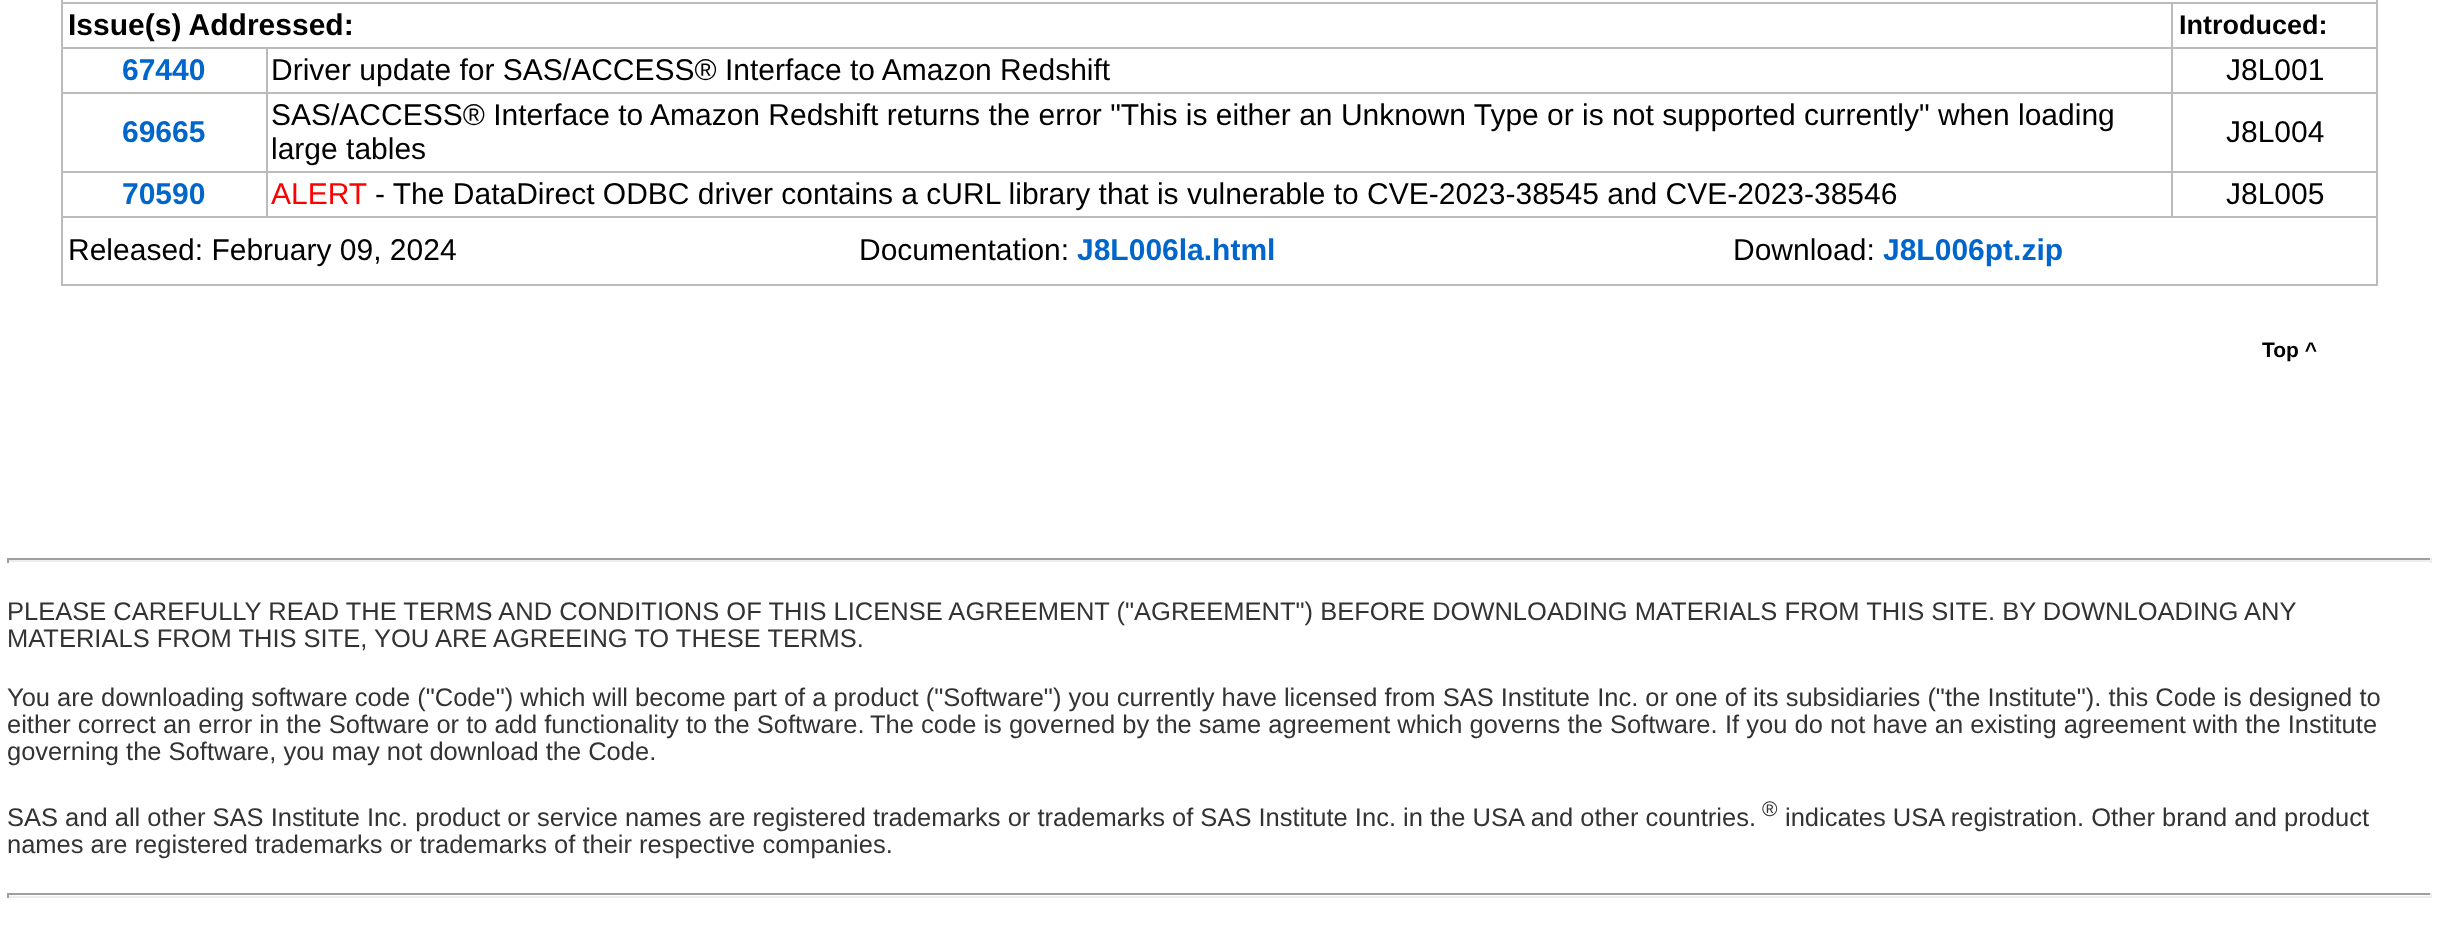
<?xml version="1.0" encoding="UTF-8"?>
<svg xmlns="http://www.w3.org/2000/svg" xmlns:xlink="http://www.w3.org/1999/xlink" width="2439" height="941">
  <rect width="100%" height="100%" fill="#ffffff" />
  <rect x="2376" width="2" height="286" fill="#bbbbbb" />
  <rect x="61" y="284" width="2317" height="2" fill="#bbbbbb" />
  <rect x="61" width="2" height="286" fill="#bbbbbb" />
  <rect x="2171" y="2" width="207" height="2" fill="#bbbbbb" />
  <rect x="2171" y="47" width="207" height="2" fill="#bbbbbb" />
  <rect x="2171" y="92" width="207" height="2" fill="#bbbbbb" />
  <rect x="2171" y="171" width="207" height="2" fill="#bbbbbb" />
  <rect x="61" y="216" width="2317" height="2" fill="#bbbbbb" />
  <rect x="2171" y="171" width="2" height="47" fill="#bbbbbb" />
  <rect x="266" y="171" width="1908" height="2" fill="#bbbbbb" />
  <rect x="2171" y="92" width="2" height="81" fill="#bbbbbb" />
  <rect x="266" y="92" width="1908" height="2" fill="#bbbbbb" />
  <rect x="2171" y="47" width="2" height="48" fill="#bbbbbb" />
  <rect x="266" y="47" width="1908" height="2" fill="#bbbbbb" />
  <rect x="2171" y="2" width="2" height="48" fill="#bbbbbb" />
  <rect x="61" y="2" width="2113" height="2" fill="#bbbbbb" />
  <rect x="266" y="171" width="2" height="47" fill="#bbbbbb" />
  <rect x="61" y="171" width="207" height="2" fill="#bbbbbb" />
  <rect x="266" y="92" width="2" height="81" fill="#bbbbbb" />
  <rect x="61" y="92" width="207" height="2" fill="#bbbbbb" />
  <rect x="266" y="47" width="2" height="48" fill="#bbbbbb" />
  <rect x="61" y="47" width="207" height="2" fill="#bbbbbb" />
  <rect x="7" y="558" width="2425" height="2" fill="#9f9f9f" />
  <rect x="2430" y="558" width="2" height="5" fill="#eeeeee" />
  <rect x="7" y="560" width="2425" height="2" fill="#eeeeee" />
  <rect x="7" y="558" width="2" height="5" fill="#9f9f9f" />
  <rect x="7" y="893" width="2425" height="2" fill="#9f9f9f" />
  <rect x="2430" y="893" width="2" height="5" fill="#eeeeee" />
  <rect x="7" y="896" width="2425" height="2" fill="#eeeeee" />
  <rect x="7" y="893" width="2" height="5" fill="#9f9f9f" />
  <text x="68" y="35" style="font-family: Liberation Sans; font-size: 30px; font-weight: bold; fill: #000000">Issue(s) Addressed:</text>
  <text x="2179" y="34" style="font-family: Liberation Sans; font-size: 27px; font-weight: bold; fill: #000000">Introduced:</text>
  <text x="122" y="80" style="font-family: Liberation Sans; font-size: 30px; font-weight: bold; fill: #0066cc">67440</text>
  <text x="271" y="80" style="font-family: Liberation Sans; font-size: 30px; fill: #000000">Driver update for SAS/ACCESS® Interface to Amazon Redshift</text>
  <text x="2226" y="80" style="font-family: Liberation Sans; font-size: 30px; fill: #000000">J8L001</text>
  <text x="122" y="142" style="font-family: Liberation Sans; font-size: 30px; font-weight: bold; fill: #0066cc">69665</text>
  <text x="271" y="125" style="font-family: Liberation Sans; font-size: 30px; fill: #000000">SAS/ACCESS® Interface to Amazon Redshift returns the error "This is either an Unknown Type or is not supported currently" when loading</text>
  <text x="271" y="159" style="font-family: Liberation Sans; font-size: 30px; fill: #000000">large tables</text>
  <text x="2226" y="142" style="font-family: Liberation Sans; font-size: 30px; fill: #000000">J8L004</text>
  <text x="122" y="204" style="font-family: Liberation Sans; font-size: 30px; font-weight: bold; fill: #0066cc">70590</text>
  <text x="271" y="204" style="font-family: Liberation Sans; font-size: 30px; fill: #ff0000">ALERT</text>
  <text x="375" y="204" style="font-family: Liberation Sans; font-size: 30px; fill: #000000">- The DataDirect ODBC driver contains a cURL library that is vulnerable to CVE-2023-38545 and CVE-2023-38546</text>
  <text x="2226" y="204" style="font-family: Liberation Sans; font-size: 30px; fill: #000000">J8L005</text>
  <text x="68" y="260" style="font-family: Liberation Sans; font-size: 30px; fill: #000000">Released: February 09, 2024</text>
  <text x="859" y="260" style="font-family: Liberation Sans; font-size: 30px; fill: #000000">Documentation:</text>
  <text x="1077" y="260" style="font-family: Liberation Sans; font-size: 30px; font-weight: bold; fill: #0066cc">J8L006la.html</text>
  <text x="1733" y="260" style="font-family: Liberation Sans; font-size: 30px; fill: #000000">Download:</text>
  <text x="1883" y="260" style="font-family: Liberation Sans; font-size: 30px; font-weight: bold; fill: #0066cc">J8L006pt.zip</text>
  <text x="2262" y="357" style="font-family: Liberation Sans; font-size: 21px; font-weight: bold; fill: #000000">Top ^</text>
  <text x="7" y="620" style="font-family: Liberation Sans; font-size: 25.5px; fill: #333333">PLEASE CAREFULLY READ THE TERMS AND CONDITIONS OF THIS LICENSE AGREEMENT ("AGREEMENT") BEFORE DOWNLOADING MATERIALS FROM THIS SITE. BY DOWNLOADING ANY</text>
  <text x="7" y="647" style="font-family: Liberation Sans; font-size: 25.5px; fill: #333333">MATERIALS FROM THIS SITE, YOU ARE AGREEING TO THESE TERMS.</text>
  <text x="7" y="706" style="font-family: Liberation Sans; font-size: 25.5px; fill: #333333">You are downloading software code ("Code") which will become part of a product ("Software") you currently have licensed from SAS Institute Inc. or one of its subsidiaries ("the Institute"). this Code is designed to</text>
  <text x="7" y="733" style="font-family: Liberation Sans; font-size: 25.5px; fill: #333333">either correct an error in the Software or to add functionality to the Software.</text>
  <text x="870" y="733" style="font-family: Liberation Sans; font-size: 25.5px; fill: #333333">The code is governed by the same agreement which governs the Software.</text>
  <text x="1725" y="733" style="font-family: Liberation Sans; font-size: 25.5px; fill: #333333">If you do not have an existing agreement with the Institute</text>
  <text x="7" y="760" style="font-family: Liberation Sans; font-size: 25.5px; fill: #333333">governing the Software, you may not download the Code.</text>
  <text x="7" y="826" style="font-family: Liberation Sans; font-size: 25.5px; fill: #333333">SAS and all other SAS Institute Inc. product or service names are registered trademarks or trademarks of SAS Institute Inc. in the USA and other countries.</text>
  <text x="1762" y="816" style="font-family: Liberation Sans; font-size: 21px; fill: #333333">®</text>
  <text x="1785" y="826" style="font-family: Liberation Sans; font-size: 25.5px; fill: #333333">indicates USA registration. Other brand and product</text>
  <text x="7" y="853" style="font-family: Liberation Sans; font-size: 25.5px; fill: #333333">names are registered trademarks or trademarks of their respective companies.</text>
</svg>
